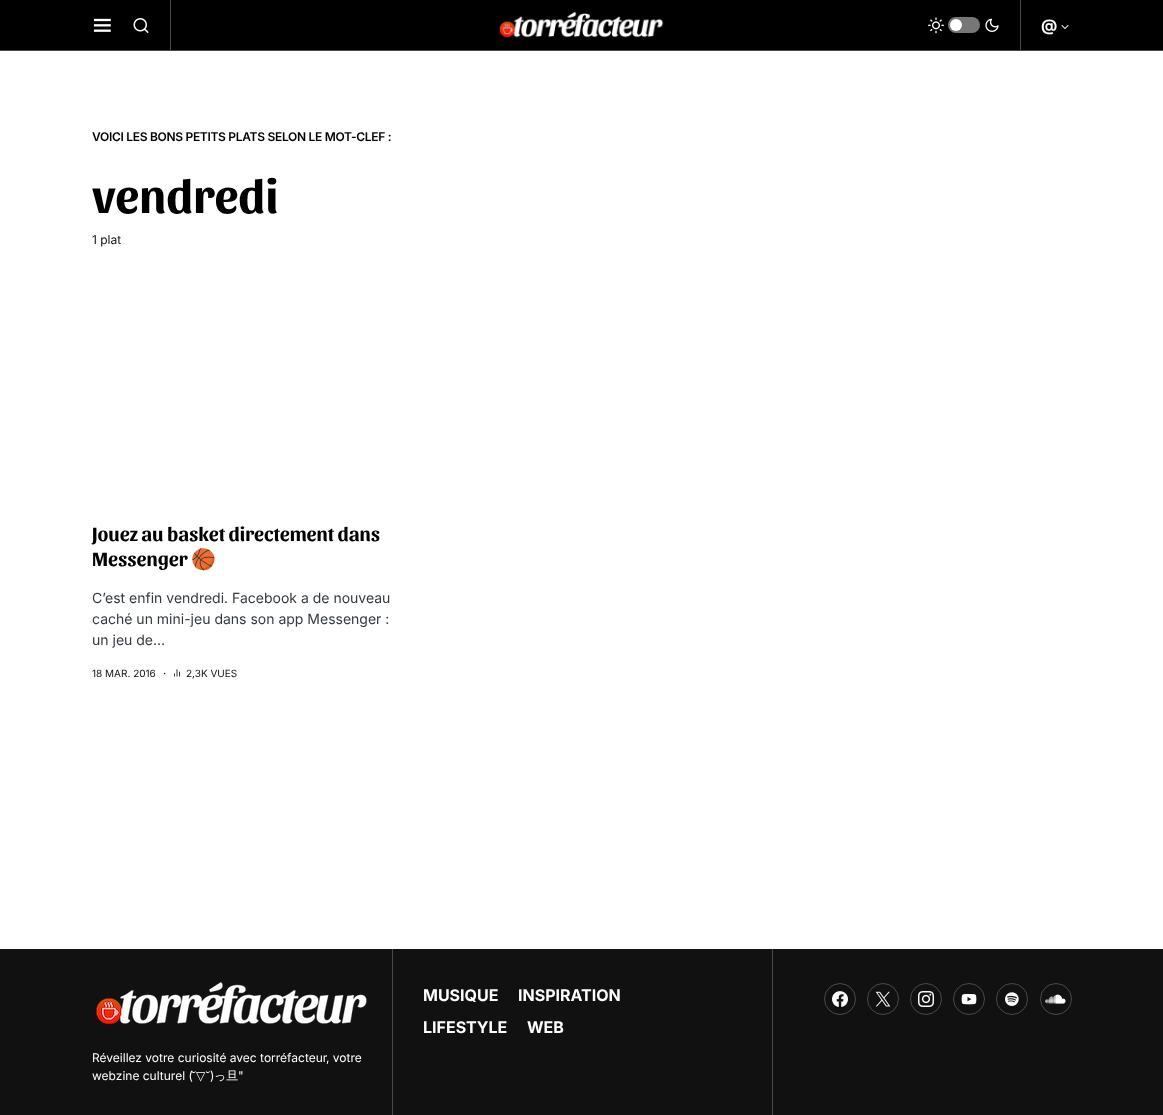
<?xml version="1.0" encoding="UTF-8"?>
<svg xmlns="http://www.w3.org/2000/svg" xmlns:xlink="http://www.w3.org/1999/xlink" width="1163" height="1115">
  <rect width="100%" height="100%" fill="#ffffff" />
  <rect width="1163" height="50" fill="#000000" />
  <rect y="50" width="1163" height="1" fill="#494949" />
  <image x="93" y="18" width="18" height="14" xlink:href="image1.png" />
  <rect x="170" width="1" height="50" fill="#494949" />
  <image x="133" y="18" width="16" height="15" xlink:href="image2.png" />
  <image x="499" y="12" width="165" height="26" xlink:href="image3.png" />
  <image x="928" y="17" width="16" height="17" xlink:href="image4.png" />
  <rect x="948" y="17" width="32" height="16" rx="8" fill="#777777" />
  <circle cx="956" cy="25" r="6" fill="#ffffff" />
  <image x="985" y="18" width="14" height="14" xlink:href="image5.png" />
  <rect x="1020" width="1" height="50" fill="#494949" />
  <image x="1061" y="25" width="8" height="4" xlink:href="image6.png" />
  <image x="174" y="669" width="6" height="8" xlink:href="image7.png" />
  <rect y="949" width="1163" height="166" fill="#111111" />
  <rect x="392" y="949" width="1" height="166" fill="#494949" />
  <rect x="772" y="949" width="1" height="166" fill="#494949" />
  <circle cx="840" cy="999" r="15.5" fill="none" stroke="#494949" />
  <image x="832" y="991" width="16" height="16" xlink:href="image8.png" />
  <circle cx="883" cy="999" r="15.5" fill="none" stroke="#494949" />
  <image x="875" y="991" width="16" height="16" xlink:href="image9.png" />
  <circle cx="926" cy="999" r="15.5" fill="none" stroke="#494949" />
  <image x="918" y="991" width="16" height="16" xlink:href="image10.png" />
  <circle cx="969" cy="999" r="15.5" fill="none" stroke="#494949" />
  <image x="961" y="994" width="16" height="11" xlink:href="image11.png" />
  <circle cx="1012" cy="999" r="15.5" fill="none" stroke="#494949" />
  <image x="1005" y="992" width="14" height="14" xlink:href="image12.png" />
  <circle cx="1056" cy="999" r="15.5" fill="none" stroke="#494949" />
  <image x="1045" y="994" width="21" height="10" xlink:href="image13.png" />
  <image x="96" y="982" width="271" height="43" xlink:href="image14.png" />
  <text x="1041" y="31" style="font-family: Inter; font-size: 16px; font-weight: bold; fill: #ffffff">@</text>
  <text x="92" y="141" style="font-family: Inter; font-size: 12px; font-weight: 600; letter-spacing: -0.3px; fill: #000000">VOICI LES BONS PETITS PLATS SELON LE MOT-CLEF :</text>
  <text x="92" y="213" style="font-family: Sansita; font-size: 48px; font-weight: bold; fill: #000000">vendredi</text>
  <text x="92" y="244" style="font-family: Inter; font-size: 12px; fill: #111111">1 plat</text>
  <text x="92" y="541" style="font-family: Sansita; font-size: 20px; font-weight: bold; fill: #000000">Jouez au basket directement dans</text>
  <text x="92" y="566" style="font-family: Sansita; font-size: 20px; font-weight: bold; fill: #000000">Messenger</text>
  <text x="191" y="566" style="font-family: Noto Color Emoji; font-size: 20px; font-weight: bold; fill: #000000">🏀</text>
  <text x="92" y="603" style="font-family: Inter; font-size: 14px; fill: #343a40">C’est enfin vendredi. Facebook a de nouveau</text>
  <text x="92" y="624" style="font-family: Inter; font-size: 14px; fill: #343a40">caché un mini-jeu dans son app Messenger :</text>
  <text x="92" y="645" style="font-family: Inter; font-size: 14px; fill: #343a40">un jeu de…</text>
  <text x="92" y="677" style="font-family: Inter; font-size: 10px; fill: #111111">18 MAR. 2016</text>
  <text x="163" y="677" style="font-family: Inter; font-size: 10px; font-weight: 600; fill: #111111">·</text>
  <text x="186" y="677" style="font-family: Inter; font-size: 10px; fill: #111111">2,3K VUES</text>
  <text x="423" y="1001" style="font-family: Inter; font-size: 16px; font-weight: bold; fill: #ffffff">MUSIQUE</text>
  <text x="518" y="1001" style="font-family: Inter; font-size: 16px; font-weight: bold; fill: #ffffff">INSPIRATION</text>
  <text x="423" y="1033" style="font-family: Inter; font-size: 16px; font-weight: bold; fill: #ffffff">LIFESTYLE</text>
  <text x="527" y="1033" style="font-family: Inter; font-size: 16px; font-weight: bold; fill: #ffffff">WEB</text>
  <text x="92" y="1062" style="font-family: Inter; font-size: 12px; fill: #ffffff">Réveillez votre curiosité avec torréfacteur</text>
  <text x="326" y="1062" style="font-family: Inter; font-size: 12px; fill: #ffffff">, votre</text>
  <text x="92" y="1080" style="font-family: Inter; font-size: 12px; fill: #ffffff">webzine culturel (</text>
  <text x="192" y="1080" style="font-family: Liberation Sans; font-size: 12px; fill: #ffffff">˘</text>
  <text x="196" y="1080" style="font-family: DejaVu Sans; font-size: 12px; fill: #ffffff">▽</text>
  <text x="206" y="1080" style="font-family: Liberation Sans; font-size: 12px; fill: #ffffff">˘</text>
  <text x="210" y="1080" style="font-family: Inter; font-size: 12px; fill: #ffffff">)</text>
  <text x="214" y="1080" style="font-family: WenQuanYi Zen Hei; font-size: 12px; font-weight: 500; fill: #ffffff">っ旦</text>
  <text x="238" y="1080" style="font-family: Inter; font-size: 12px; fill: #ffffff">"</text>
</svg>
